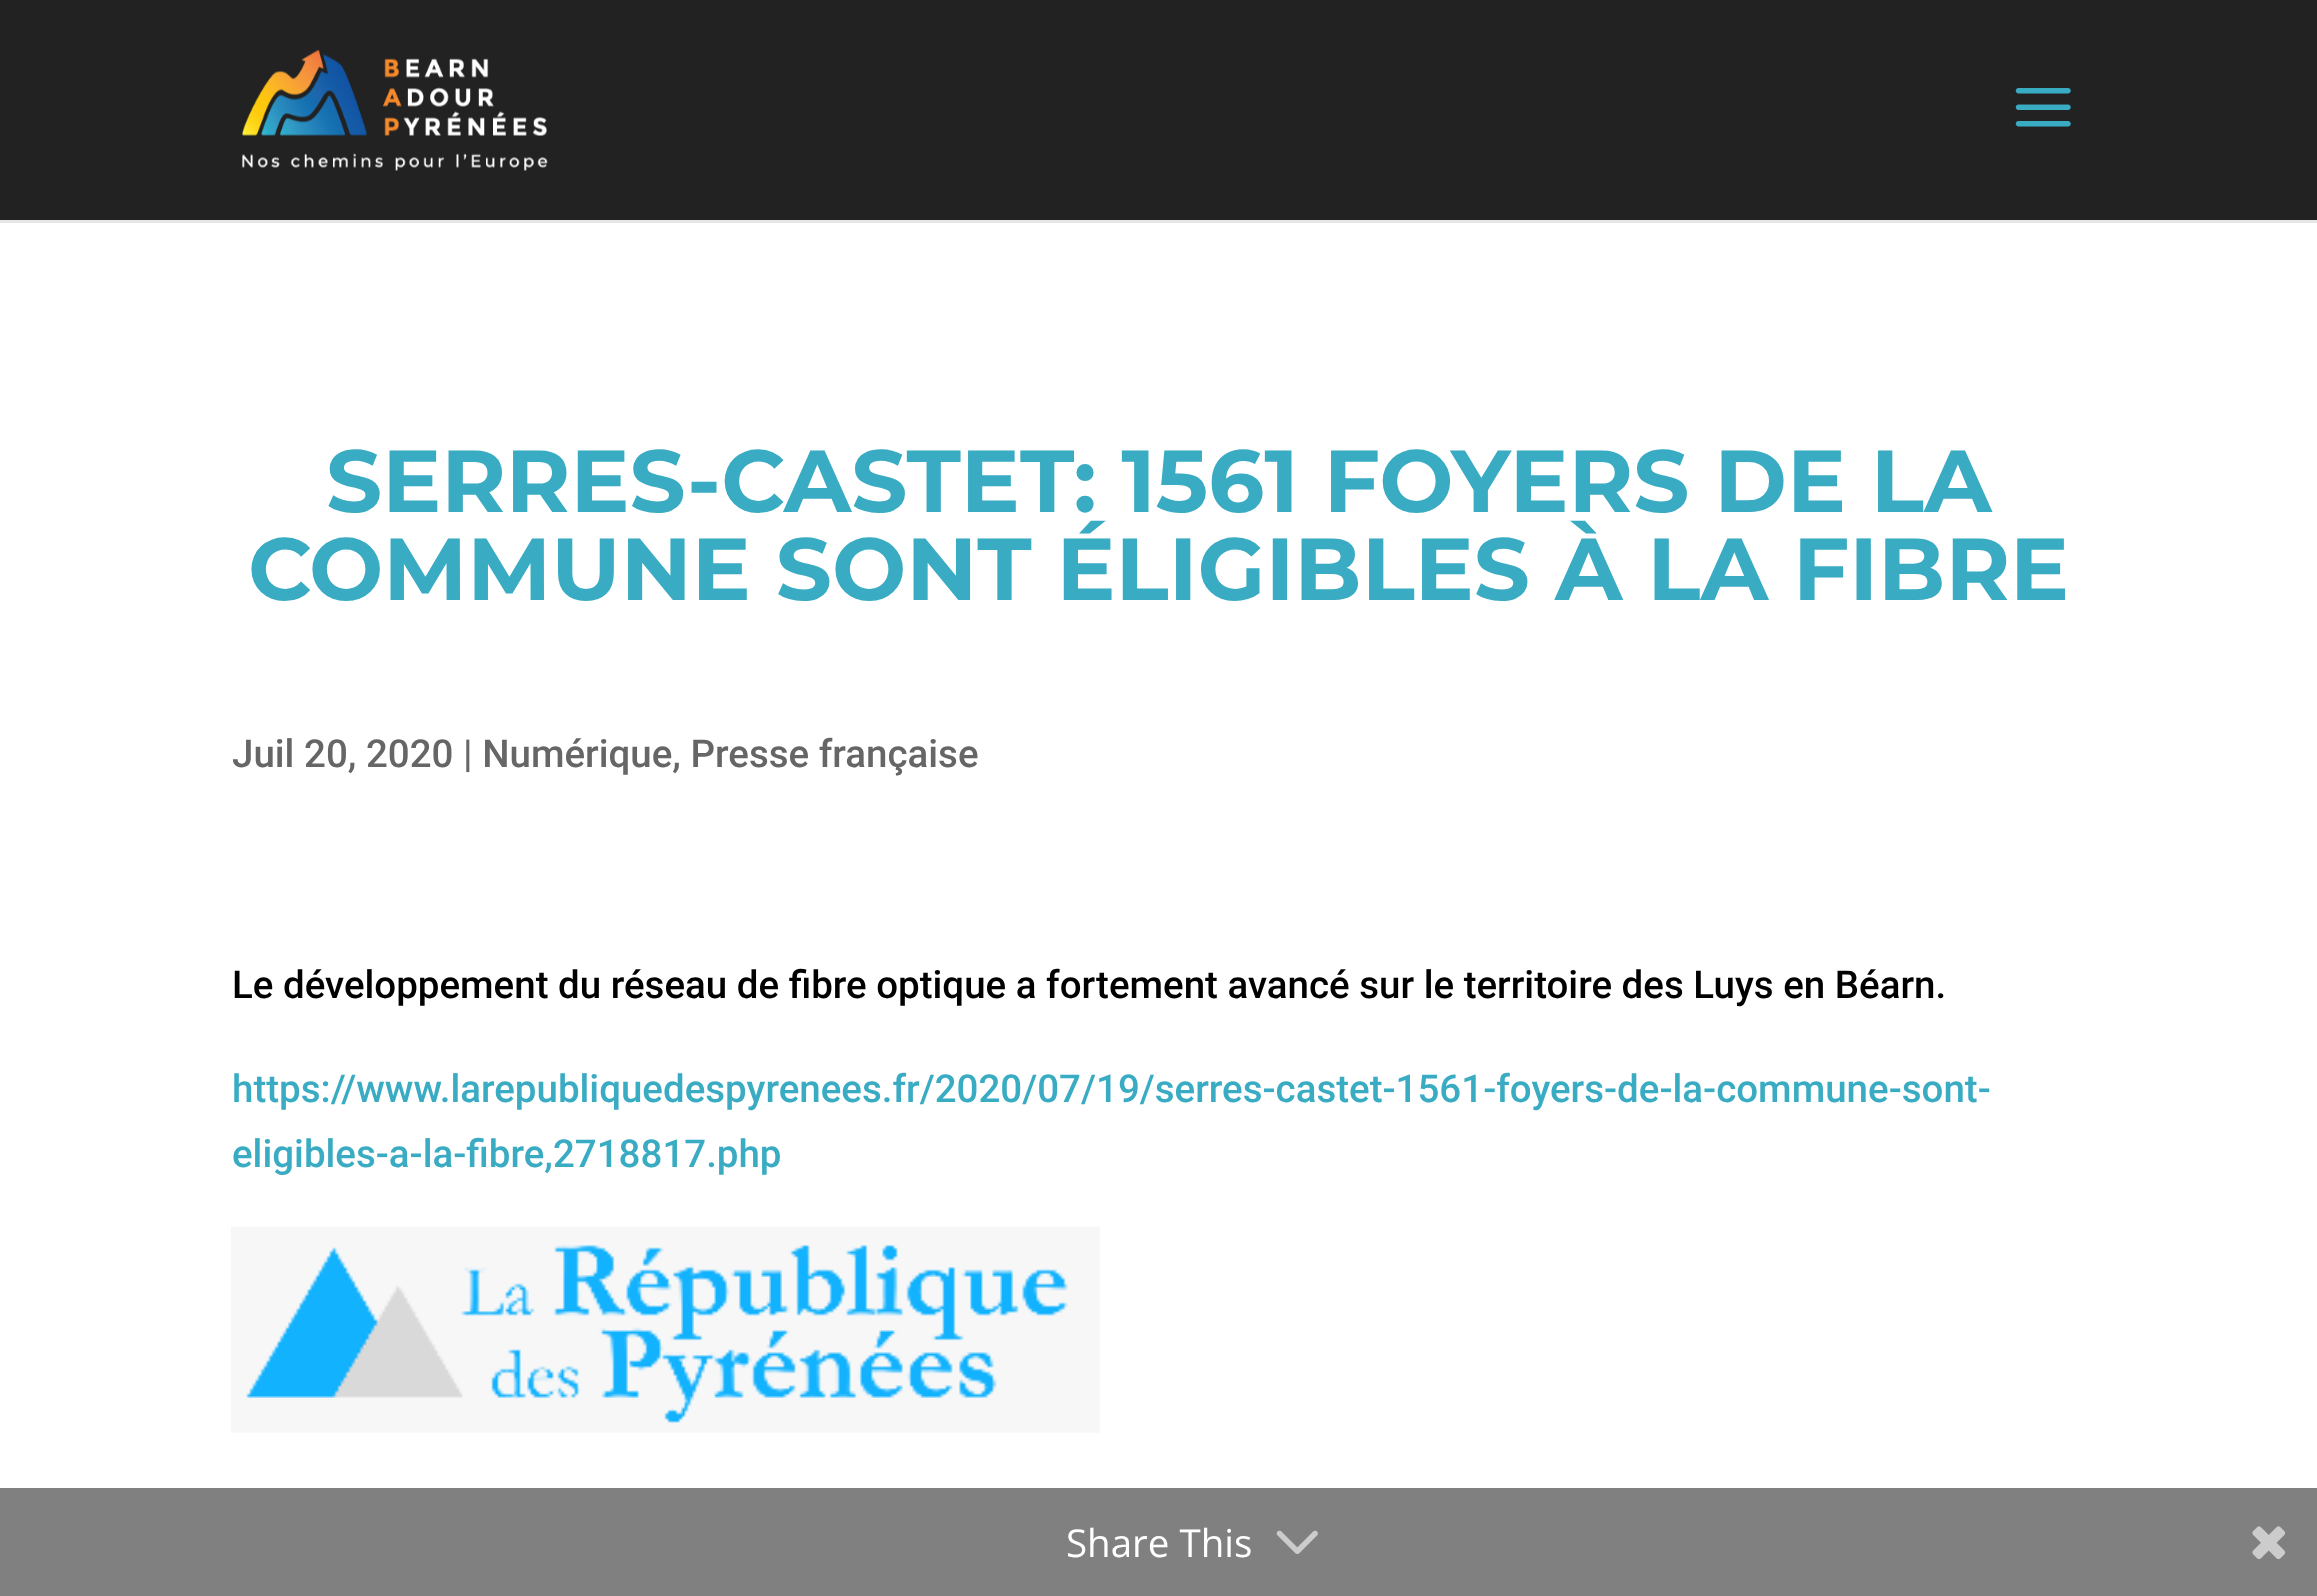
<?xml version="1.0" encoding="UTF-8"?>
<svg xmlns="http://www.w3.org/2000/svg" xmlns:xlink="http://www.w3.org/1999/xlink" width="2317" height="1596">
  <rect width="100%" height="100%" fill="#ffffff" />
  <rect y="220" width="2317" height="3" fill="#e6e6e6" />
  <rect width="2317" height="220" fill="#222222" />
  <image x="242" y="49" width="306" height="122" xlink:href="image1.png" />
  <image x="2015" y="88" width="56" height="39" xlink:href="image2.png" />
  <image x="231" y="1226" width="869" height="207" xlink:href="image3.png" />
  <rect y="1488" width="2317" height="108" fill="#808080" />
  <image x="1276" y="1530" width="42" height="24" xlink:href="image4.png" />
  <image x="2252" y="1526" width="34" height="34" xlink:href="image5.png" />
  <text x="326" y="512" style="font-family: Montserrat; font-size: 88px; font-weight: bold; fill: #39abc3">SERRES-CASTET: 1561 FOYERS DE LA</text>
  <text x="248" y="600" style="font-family: Montserrat; font-size: 88px; font-weight: bold; fill: #39abc3">COMMUNE SONT ÉLIGIBLES À LA FIBRE</text>
  <text x="232" y="767" style="font-family: Roboto; font-size: 38.5px; font-weight: 500; fill: #666666">Juil 20, 2020 | Numérique, Presse française</text>
  <text x="232" y="998" style="font-family: Roboto; font-size: 38.5px; font-weight: 500; fill: #000000">Le développement du réseau de fibre optique a fortement avancé sur le territoire des Luys en Béarn.</text>
  <text x="232" y="1102" style="font-family: Roboto; font-size: 38.5px; font-weight: 500; fill: #39abc3">https://www.larepubliquedespyrenees.fr/2020/07/19/serres-castet-1561-foyers-de-la-commune-sont-</text>
  <text x="232" y="1167" style="font-family: Roboto; font-size: 38.5px; font-weight: 500; fill: #39abc3">eligibles-a-la-fibre,2718817.php</text>
  <text x="1066" y="1557" style="font-family: Open Sans; font-size: 38.5px; fill: #ffffff">Share This</text>
</svg>
